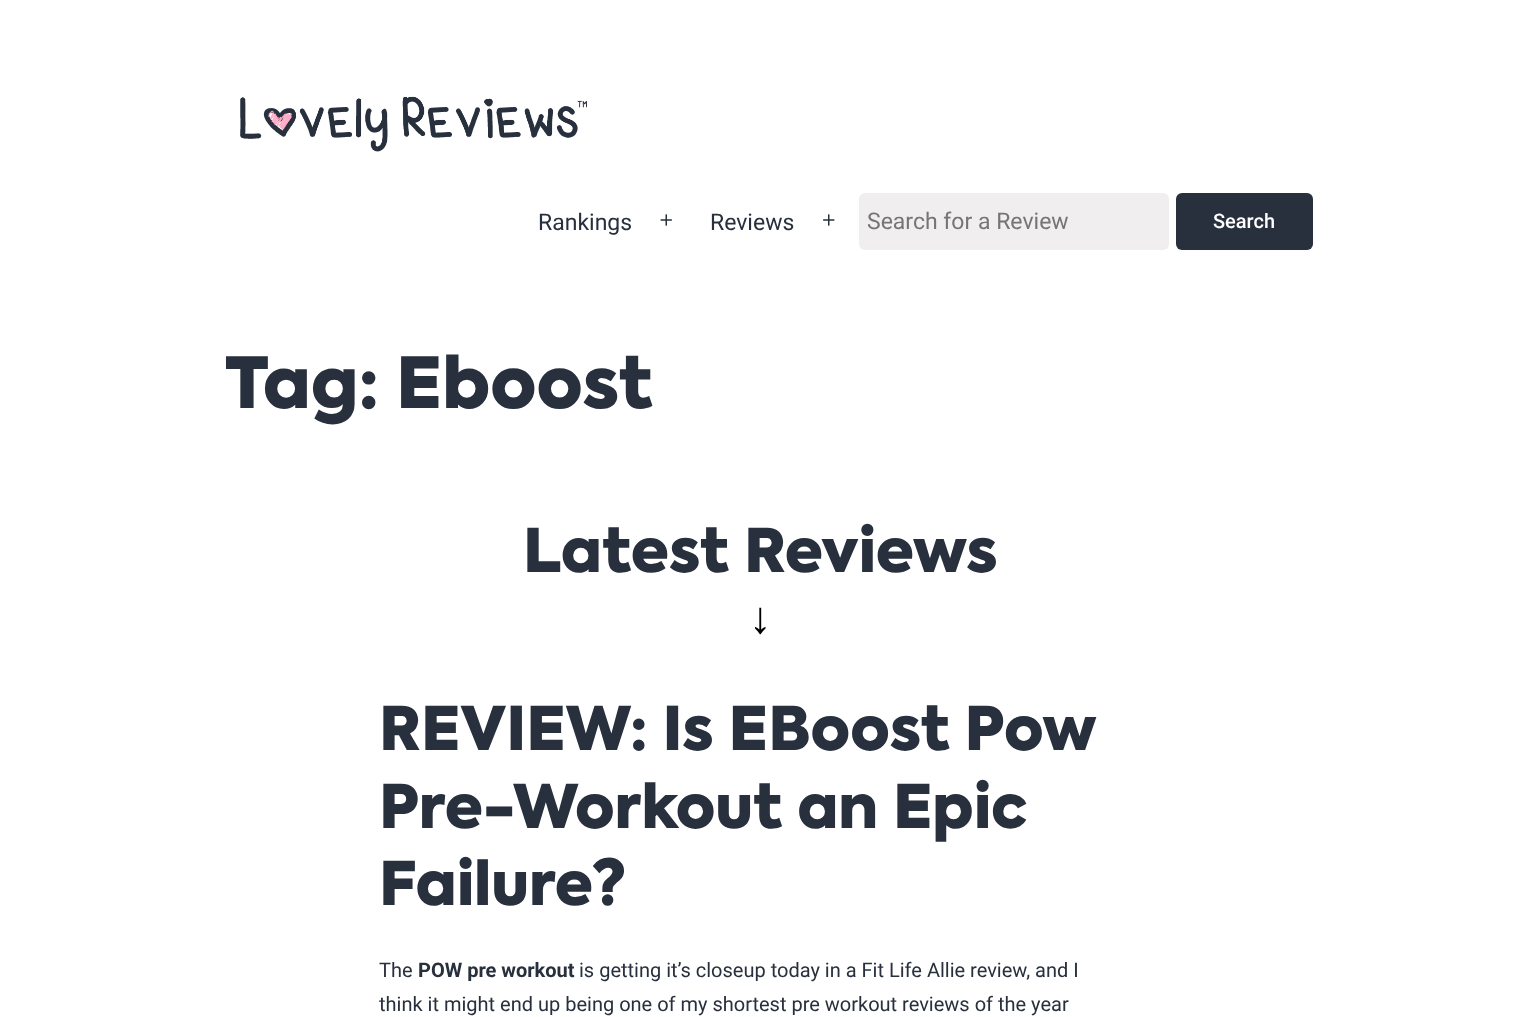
<?xml version="1.0" encoding="UTF-8"?>
<svg xmlns="http://www.w3.org/2000/svg" xmlns:xlink="http://www.w3.org/1999/xlink" width="1521" height="1017">
  <rect width="100%" height="100%" fill="#ffffff" />
  <image x="240" y="96" width="347" height="56" xlink:href="image1.png" />
  <image x="660" y="214" width="12" height="12" xlink:href="image2.png" />
  <image x="823" y="214" width="12" height="12" xlink:href="image3.png" />
  <rect x="859" y="193" width="310" height="57" rx="6" fill="#f0eeee" />
  <rect x="1176" y="193" width="137" height="57" rx="6" fill="#28303d" />
  <text x="538" y="230" style="font-family: Roboto; font-size: 23px; fill: #28303d">Rankings</text>
  <text x="710" y="230" style="font-family: Roboto; font-size: 23px; fill: #28303d">Reviews</text>
  <text x="867" y="229" style="font-family: Roboto; font-size: 23px; fill: #757575">Search for a Review</text>
  <text x="1213" y="228" style="font-family: Roboto; font-size: 20px; font-weight: 500; fill: #ffffff">Search</text>
  <text x="225" y="408" style="font-family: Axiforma; font-size: 70px; font-weight: 900; fill: #28303d">Tag: Eboost</text>
  <text x="523" y="572" style="font-family: Axiforma; font-size: 60px; font-weight: 900; fill: #28303d">Latest Reviews</text>
  <text x="749" y="633" style="font-family: Liberation Serif; font-size: 45px; fill: #000000">↓</text>
  <text x="379" y="750" style="font-family: Axiforma; font-size: 60px; font-weight: 900; fill: #28303d">REVIEW: Is EBoost Pow</text>
  <text x="379" y="828" style="font-family: Axiforma; font-size: 60px; font-weight: 900; fill: #28303d">Pre-Workout an Epic</text>
  <text x="379" y="905" style="font-family: Axiforma; font-size: 60px; font-weight: 900; fill: #28303d">Failure?</text>
  <text x="379" y="977" style="font-family: Roboto; font-size: 20px; fill: #28303d">The</text>
  <text x="418" y="977" style="font-family: Roboto; font-size: 20px; font-weight: bold; fill: #28303d">POW pre workout</text>
  <text x="579" y="977" style="font-family: Roboto; font-size: 20px; fill: #28303d">is getting it’s closeup today in a Fit Life Allie review, and I</text>
  <text x="379" y="1011" style="font-family: Roboto; font-size: 20px; fill: #28303d">think it might end up being one of my shortest pre workout reviews of the year</text>
</svg>
